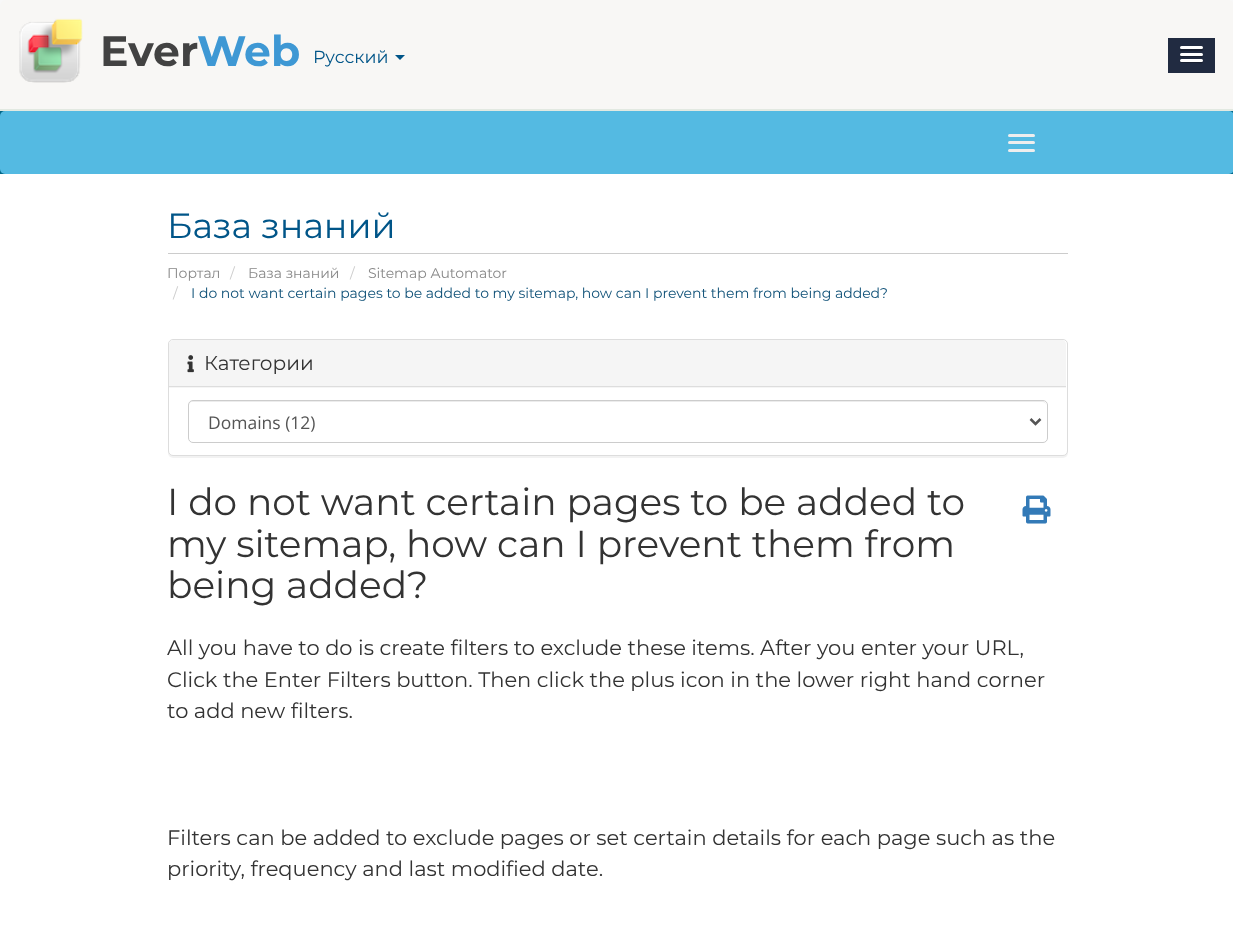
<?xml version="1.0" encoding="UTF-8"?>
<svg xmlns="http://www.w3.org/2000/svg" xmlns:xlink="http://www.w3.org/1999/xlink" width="1233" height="943">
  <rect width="100%" height="100%" fill="#f8f8f8" />
  <path d="M 6 0 h 1222 c 3.5 0 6 2.5 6 6 v 105 h -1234 v -105 c 0 -3.5 2.5 -6 6 -6 z" fill="#f8f7f5" />
  <rect y="109" width="1233" height="2" fill="#e2e9e1" />
  <image x="19" y="18" width="64" height="65" xlink:href="image1.png" />
  <path d="M 395 55 h 10 l -5 5 z" fill="#005588" />
  <rect x="1168" y="38" width="47" height="35" fill="#212b41" />
  <path d="M 1180.5 48.5 l -0.5 1.5 c 0.5 2 4 1 5 1 h 3 c 2 0 13.5 0.5 14.5 -0.5 c 0.5 -0.5 0.5 -1.5 0 -2.5 l -1 0.5 c -2 0.5 -20.5 0.5 -21 0 z" fill="#192031" />
  <rect x="1180" y="46" width="23" height="3" rx="1.5" fill="#ffffff" />
  <path d="M 1180.5 54.5 l -0.5 1.5 c 0.5 2 4 1 5 1 h 13 c 1.5 0 5 1 5 -1.5 l -0.5 -1 l -1 0.5 c -2 0.5 -20.5 0.5 -21 -0.5 z" fill="#192031" />
  <rect x="1180" y="53" width="23" height="3" rx="1.5" fill="#ffffff" />
  <path d="M 1180 60.5 c -1.5 3 4.5 2.5 5 2.5 h 13 c 1 0 4.5 1 5 -1 c 0 -0.5 0 -1.5 -0.5 -1.5 l -1 0.5 h -20.5 z" fill="#192031" />
  <rect x="1180" y="59" width="23" height="3" rx="1.5" fill="#ffffff" />
  <rect y="111" width="1233" height="63" fill="#006687" />
  <rect y="111" width="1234" height="63" rx="5" fill="#54bae2" />
  <rect x="1008" y="134" width="27" height="3" rx="1.5" fill="#eeeeee" />
  <rect x="1008" y="141" width="27" height="3" rx="1.5" fill="#eeeeee" />
  <rect x="1008" y="149" width="27" height="3" rx="1.5" fill="#eeeeee" />
  <rect y="174" width="1233" height="769" fill="#ffffff" />
  <rect x="168" y="253" width="900" height="1" fill="#cccccc" />
  <rect x="168" y="340" width="900" height="118" rx="5" fill="#000000" fill-opacity="0.05" filter="blur(0.5px)" />
  <rect x="168.5" y="339.5" width="899" height="116" rx="4.5" fill="#ffffff" stroke="#dddddd" />
  <path d="M 173 340 h 889 c 2 0 4 2 4 4 v 44 h -897 v -44 c 0 -2 2 -4 4 -4 z" fill="#f5f5f5" />
  <rect x="169" y="386" width="897" height="1" fill="#dddddd" />
  <image x="187" y="355" width="7" height="18" xlink:href="image2.png" />
  <path d="M 192 402 h 850 c 3 0 4 2 4 4 c 0 -3 -1 -5 -4 -5 h -849 c -3 0 -4 2 -4 5 c 0 -2 1 -4 3 -4 z" fill="#ececec" />
  <rect x="188.5" y="400.5" width="859" height="42" rx="4.5" fill="none" stroke="#cccccc" />
  <path d="M 1030.5 419 l 5 5 l 5 -5" fill="none" stroke="#555555" stroke-width="2.5" />
  <image x="1022" y="495" width="29" height="29" xlink:href="image3.png" />
  <text x="100" y="66" style="font-family: Montserrat; font-size: 42.5px; font-weight: bold; fill: #424242">Ever</text>
  <text x="197" y="66" style="font-family: Montserrat; font-size: 42.5px; font-weight: bold; fill: #3e98d4">Web</text>
  <text x="313" y="63" style="font-family: Montserrat; font-size: 17.5px; fill: #005588">Русский</text>
  <text x="167" y="238" style="font-family: Montserrat; font-size: 35px; fill: #005588">База знаний</text>
  <text x="167" y="278" style="font-family: Montserrat; font-size: 14px; fill: #888888">Портал</text>
  <text x="230" y="278" style="font-family: Montserrat; font-size: 14px; fill: #cccccc">/</text>
  <text x="248" y="278" style="font-family: Montserrat; font-size: 14px; fill: #888888">База знаний</text>
  <text x="350" y="278" style="font-family: Montserrat; font-size: 14px; fill: #cccccc">/</text>
  <text x="368" y="278" style="font-family: Montserrat; font-size: 14px; fill: #888888">Sitemap Automator</text>
  <text x="173" y="298" style="font-family: Montserrat; font-size: 14px; fill: #cccccc">/</text>
  <text x="191" y="298" style="font-family: Montserrat; font-size: 14px; fill: #0e5077">I do not want certain pages to be added to my sitemap, how can I prevent them from being added?</text>
  <text x="204" y="370" style="font-family: Montserrat; font-size: 20px; fill: #333333">Категории</text>
  <text x="208" y="429" style="font-family: Open Sans; font-size: 17.5px; fill: #555555">Domains (12)</text>
  <text x="167" y="515" style="font-family: Montserrat; font-size: 37.5px; fill: #333333">I do not want certain pages to be added to</text>
  <text x="167" y="557" style="font-family: Montserrat; font-size: 37.5px; fill: #333333">my sitemap, how can I prevent them from</text>
  <text x="167" y="598" style="font-family: Montserrat; font-size: 37.5px; fill: #333333">being added?</text>
  <text x="167" y="655" style="font-family: Montserrat; font-size: 21px; fill: #333333">All you have to do is create filters to exclude these items. After you enter your URL,</text>
  <text x="167" y="687" style="font-family: Montserrat; font-size: 21px; fill: #333333">Click the Enter Filters button. Then click the plus icon in the lower right hand corner</text>
  <text x="167" y="718" style="font-family: Montserrat; font-size: 21px; fill: #333333">to add new filters.</text>
  <text x="167" y="845" style="font-family: Montserrat; font-size: 21px; fill: #333333">Filters can be added to exclude pages or set certain details for each page such as the</text>
  <text x="167" y="876" style="font-family: Montserrat; font-size: 21px; fill: #333333">priority, frequency and last modified date.</text>
</svg>
